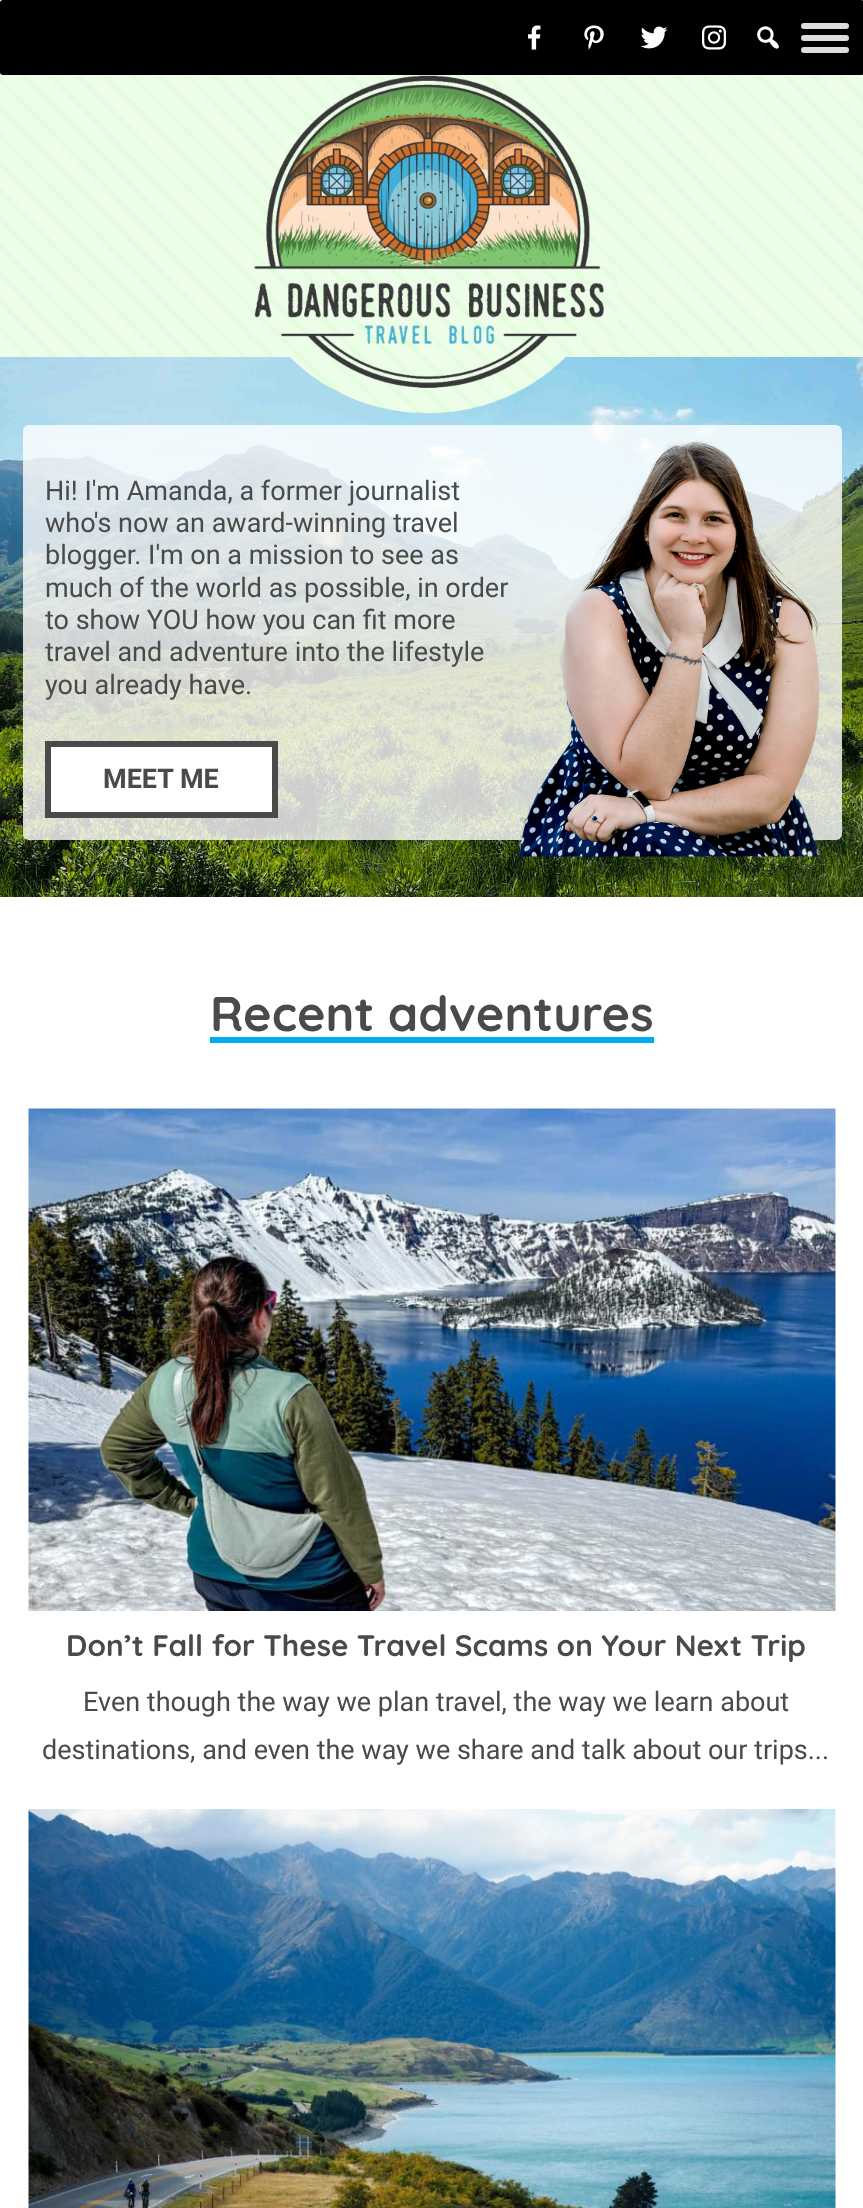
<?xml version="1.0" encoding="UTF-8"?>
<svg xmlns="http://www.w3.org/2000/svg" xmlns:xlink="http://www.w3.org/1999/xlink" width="863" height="2208">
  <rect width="100%" height="100%" fill="#ffffff" />
  <rect width="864" height="75" rx="3" fill="#000000" />
  <image x="528" y="25" width="13" height="25" xlink:href="image1.png" />
  <image x="584" y="25" width="20" height="25" xlink:href="image2.png" />
  <image x="640" y="26" width="28" height="23" xlink:href="image3.png" />
  <image x="702" y="25" width="24" height="25" xlink:href="image4.png" />
  <image x="757" y="26" width="22" height="23" xlink:href="image5.png" />
  <rect x="801" y="23" width="48" height="6" rx="3" fill="#dddddd" />
  <rect x="801" y="35" width="48" height="6" rx="3" fill="#dddddd" />
  <rect x="801" y="47" width="48" height="6" rx="3" fill="#dddddd" />
  <image x="0" y="75" width="863" height="282" xlink:href="image6.png" />
  <image x="0" y="357" width="863" height="540" xlink:href="image8.png" />
  <image x="247" y="75" width="371" height="339" xlink:href="image7.png" />
  <rect x="23" y="425" width="819" height="415" rx="6" fill="#ffffff" fill-opacity="0.8" />
  <image x="519" y="440" width="302" height="417" xlink:href="image9.png" />
  <rect x="48" y="744" width="227" height="71" fill="#ffffff" stroke="#4a4a4a" stroke-width="6" />
  <rect x="210" y="1037" width="444" height="6" fill="#03a9f4" />
  <image x="28" y="1108" width="808" height="503" xlink:href="image10.png" />
  <image x="28" y="1809" width="808" height="399" xlink:href="image11.png" />
  <text x="45" y="500" style="font-family: Roboto; font-size: 27px; fill: #4a4a4a">Hi! I'm Amanda, a former journalist</text>
  <text x="45" y="532" style="font-family: Roboto; font-size: 27px; fill: #4a4a4a">who's now an award-winning travel</text>
  <text x="45" y="564" style="font-family: Roboto; font-size: 27px; fill: #4a4a4a">blogger. I'm on a mission to see as</text>
  <text x="45" y="597" style="font-family: Roboto; font-size: 27px; fill: #4a4a4a">much of the world as possible, in order</text>
  <text x="45" y="629" style="font-family: Roboto; font-size: 27px; fill: #4a4a4a">to show YOU how you can fit more</text>
  <text x="45" y="661" style="font-family: Roboto; font-size: 27px; fill: #4a4a4a">travel and adventure into the lifestyle</text>
  <text x="45" y="694" style="font-family: Roboto; font-size: 27px; fill: #4a4a4a">you already have.</text>
  <text x="103" y="788" style="font-family: Roboto; font-size: 27px; font-weight: bold; fill: #4a4a4a">MEET ME</text>
  <text x="210" y="1031" style="font-family: Quicksand; font-size: 48.5px; font-weight: bold; fill: #4a4a4a">Recent adventures</text>
  <text x="66" y="1656" style="font-family: Quicksand; font-size: 29.7px; font-weight: bold; fill: #4a4a4a">Don’t Fall for These Travel Scams on Your Next Trip</text>
  <text x="83" y="1711" style="font-family: Roboto; font-size: 27px; fill: #4a4a4a">Even though the way we plan travel, the way we learn about</text>
  <text x="42" y="1759" style="font-family: Roboto; font-size: 27px; fill: #4a4a4a">destinations, and even the way we share and talk about our trips...</text>
</svg>
